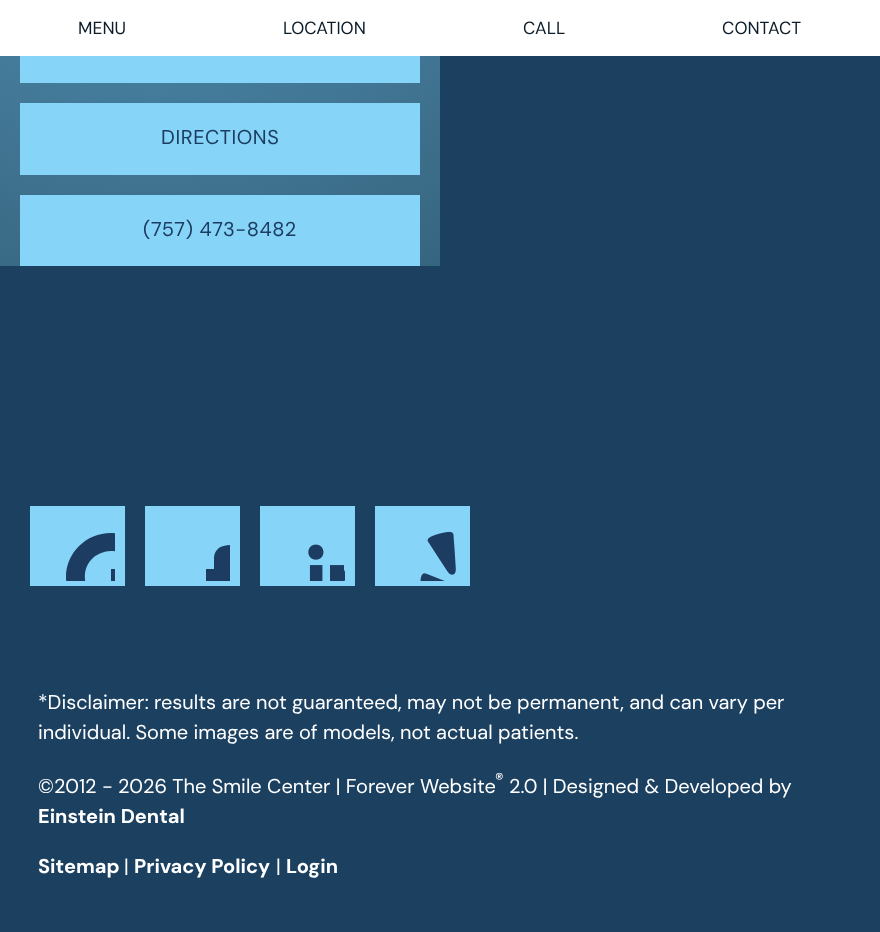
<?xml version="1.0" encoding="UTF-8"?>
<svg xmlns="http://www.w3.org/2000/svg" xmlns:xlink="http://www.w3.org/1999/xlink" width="880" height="932">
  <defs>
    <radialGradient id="g1" gradientUnits="userSpaceOnUse" cx="154" cy="-232" r="575"><stop offset="0" stop-color="#5797bd" /><stop offset="1" stop-color="#36657f" /></radialGradient>
    <clipPath id="clip1"><rect x="40" y="506" width="75" height="75" /></clipPath>
    <clipPath id="clip2"><rect x="155" y="506" width="75" height="75" /></clipPath>
  </defs>
  <rect width="100%" height="100%" fill="#1c4060" />
  <rect width="880" height="56" fill="#ffffff" />
  <rect y="56" width="440" height="210" fill="url(#g1)" />
  <rect x="20" y="56" width="400" height="27" fill="#86d4f7" />
  <rect x="20" y="103" width="400" height="72" fill="#86d4f7" />
  <rect x="20" y="195" width="400" height="71" fill="#86d4f7" />
  <rect x="30" y="506" width="95" height="80" fill="#86d4f7" />
  <g clip-path="url(#clip1)">
    <path d="M 111 569 v 17 h 24 c -3 10 -9 16 -19 18 c -38 4 -43 -51 -5 -53 c 6 0 12 2 17 7 l 13 -14 c -8 -7 -19 -11 -30 -11 c -25 0 -45 20 -45 44 c 0 25 20 45 45 45 c 37 0 45 -32 42 -53 z" fill="#1c3c61" fill-rule="evenodd" />
  </g>
  <rect x="145" y="506" width="95" height="80" fill="#86d4f7" />
  <g clip-path="url(#clip2)">
    <path d="M 230 618 h -16 v -37 h -8 v -12 h 8 v -12 c 2 -14 16 -12 27 -12 v 12 c -12 0 -11 0 -11 12 h 11 l -1 12 h -10 z" fill="#1c3c61" fill-rule="evenodd" />
  </g>
  <rect x="260" y="506" width="95" height="80" fill="#86d4f7" />
  <image x="308" y="544" width="37" height="37" xlink:href="image1.png" />
  <rect x="375" y="506" width="95" height="80" fill="#86d4f7" />
  <image x="420" y="531" width="36" height="50" xlink:href="image2.png" />
  <text x="78" y="34" style="font-family: 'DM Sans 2'; font-size: 17.5px; fill: #0c1c29">MENU</text>
  <text x="283" y="34" style="font-family: 'DM Sans 2'; font-size: 17.5px; fill: #0c1c29">LOCATION</text>
  <text x="523" y="34" style="font-family: 'DM Sans 2'; font-size: 17.5px; fill: #0c1c29">CALL</text>
  <text x="722" y="34" style="font-family: 'DM Sans 2'; font-size: 17.5px; fill: #0c1c29">CONTACT</text>
  <text x="161" y="144" style="font-family: DM Sans; font-size: 20px; letter-spacing: 0.6px; fill: #1c3c61">DIRECTIONS</text>
  <text x="143" y="236" style="font-family: DM Sans; font-size: 20px; letter-spacing: 0.6px; fill: #1c3c61">(757) 473-8482</text>
  <text x="38" y="709" style="font-family: DM Sans; font-size: 20px; fill: #ffffff">*Disclaimer: results are not guaranteed, may not be permanent, and can vary per</text>
  <text x="38" y="739" style="font-family: DM Sans; font-size: 20px; fill: #ffffff">individual. Some images are of models, not actual patients.</text>
  <text x="495" y="785" style="font-family: 'DM Sans 2'; font-size: 17px; fill: #ffffff">®</text>
  <text x="38" y="793" style="font-family: DM Sans; font-size: 20px; fill: #ffffff">©2012 - 2026 The Smile Center | Forever Website</text>
  <text x="509" y="793" style="font-family: DM Sans; font-size: 20px; fill: #ffffff">2.0 | Designed &amp; Developed by</text>
  <text x="38" y="823" style="font-family: DM Sans; font-size: 20px; font-weight: bold; fill: #ffffff">Einstein Dental</text>
  <text x="38" y="873" style="font-family: DM Sans; font-size: 20px; font-weight: bold; fill: #ffffff">Sitemap</text>
  <text x="124" y="873" style="font-family: DM Sans; font-size: 20px; fill: #ffffff">|</text>
  <text x="134" y="873" style="font-family: DM Sans; font-size: 20px; font-weight: bold; fill: #ffffff">Privacy Policy</text>
  <text x="276" y="873" style="font-family: DM Sans; font-size: 20px; fill: #ffffff">|</text>
  <text x="286" y="873" style="font-family: DM Sans; font-size: 20px; font-weight: bold; fill: #ffffff">Login</text>
</svg>
